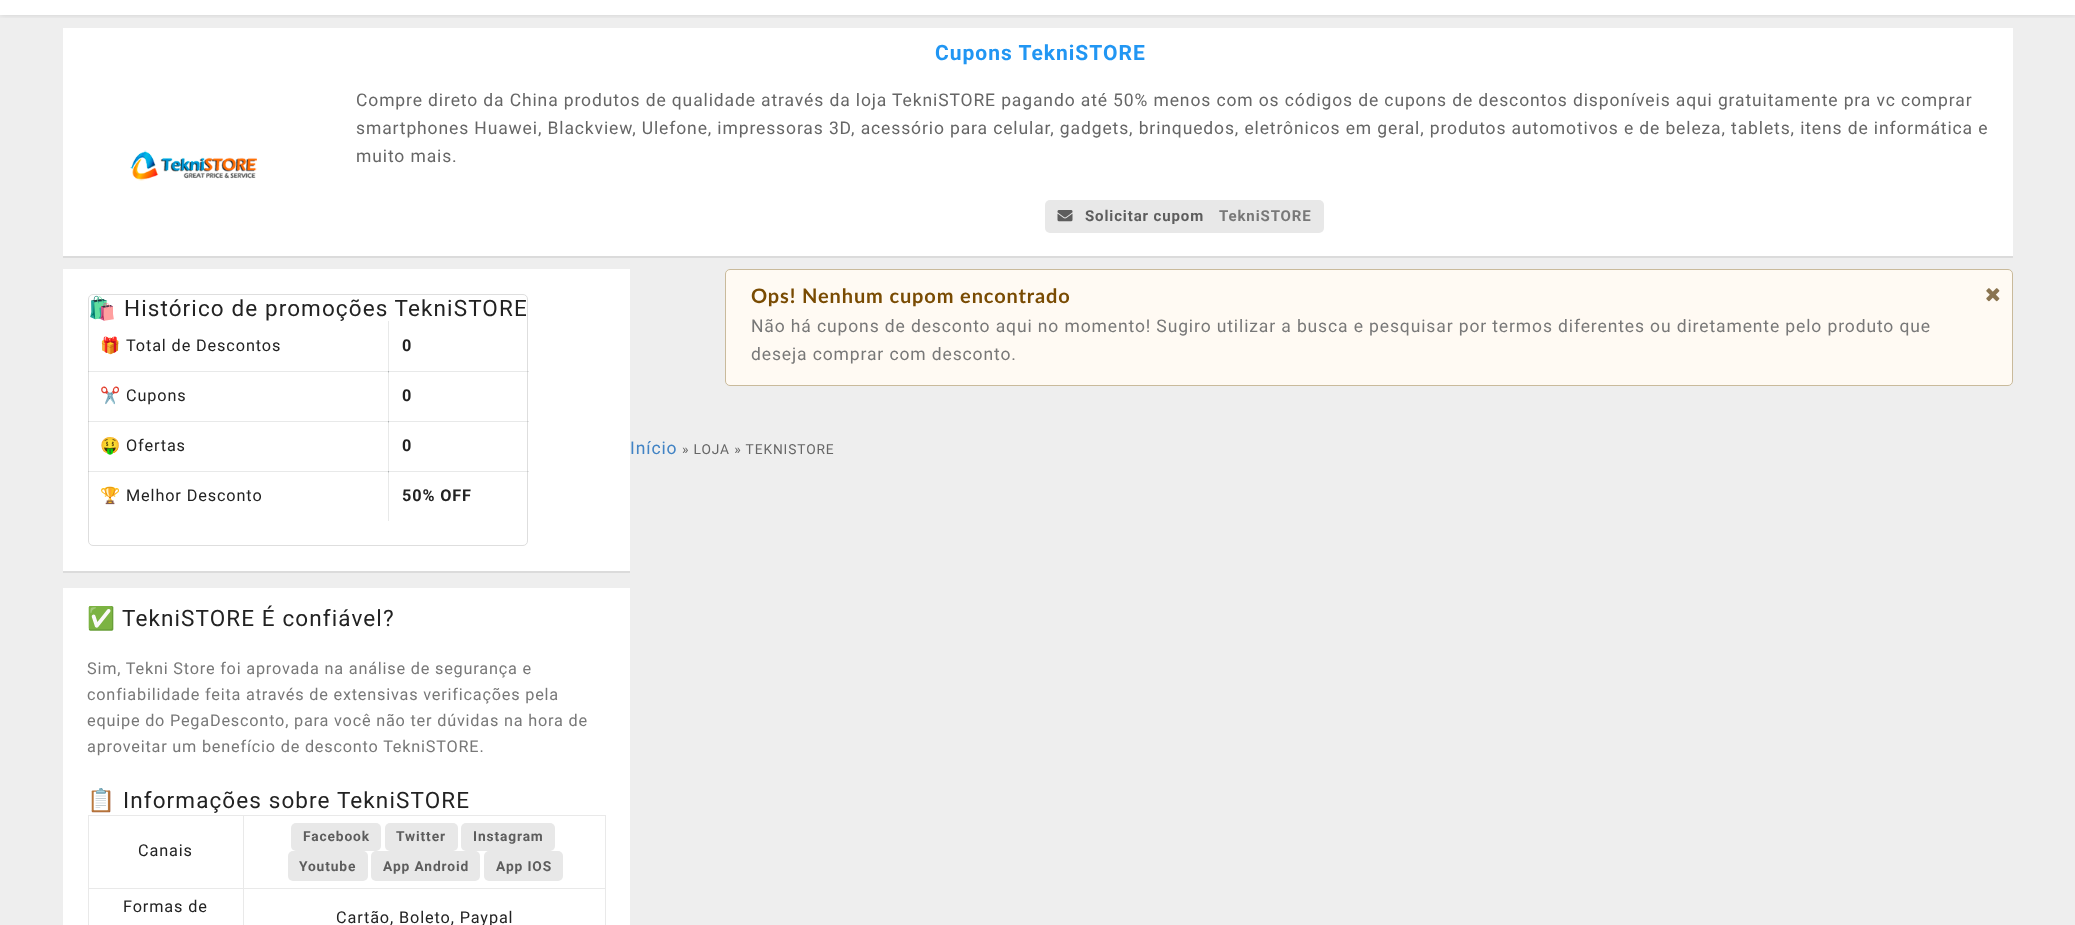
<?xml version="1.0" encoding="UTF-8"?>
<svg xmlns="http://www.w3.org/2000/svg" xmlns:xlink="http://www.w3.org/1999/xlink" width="2075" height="925">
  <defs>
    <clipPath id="clip1"><rect x="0" y="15" width="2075" height="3" /></clipPath>
  </defs>
  <rect width="100%" height="100%" fill="#ffffff" />
  <rect y="15" width="2075" height="910" fill="#eeeeee" />
  <g clip-path="url(#clip1)">
    <rect y="-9" width="2075" height="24" fill="#000000" fill-opacity="0.12" filter="blur(3px)" />
  </g>
  <rect x="63" y="29" width="1950" height="229" fill="#000000" fill-opacity="0.08" filter="blur(0.5px)" />
  <rect x="63" y="28" width="1950" height="228" fill="#ffffff" />
  <image x="130" y="150" width="127" height="31" xlink:href="image1.png" />
  <rect x="1045" y="200" width="279" height="33" rx="5" fill="#e8e8e8" />
  <image x="1057" y="210" width="16" height="12" xlink:href="image2.png" />
  <rect x="63" y="270" width="567" height="303" fill="#000000" fill-opacity="0.08" filter="blur(0.5px)" />
  <rect x="63" y="269" width="567" height="302" fill="#ffffff" />
  <rect x="88.5" y="294.5" width="439" height="251" rx="4.5" fill="none" stroke="#dedede" />
  <rect x="388" y="371" width="141" height="1" fill="#222426" fill-opacity="0.1" />
  <rect x="388" y="421" width="141" height="1" fill="#222426" fill-opacity="0.1" />
  <rect x="388" y="471" width="141" height="1" fill="#222426" fill-opacity="0.1" />
  <rect x="388" y="471" width="1" height="50" fill="#222426" fill-opacity="0.1" />
  <rect x="88" y="471" width="301" height="1" fill="#222426" fill-opacity="0.1" />
  <rect x="388" y="421" width="1" height="52" fill="#222426" fill-opacity="0.1" />
  <rect x="88" y="421" width="301" height="1" fill="#222426" fill-opacity="0.1" />
  <rect x="388" y="371" width="1" height="52" fill="#222426" fill-opacity="0.1" />
  <rect x="88" y="371" width="301" height="1" fill="#222426" fill-opacity="0.1" />
  <rect x="388" y="321" width="1" height="52" fill="#222426" fill-opacity="0.1" />
  <rect x="63" y="588" width="567" height="337" fill="#ffffff" />
  <rect x="88" y="815" width="518" height="1" fill="#e9e9e9" />
  <rect x="605" y="815" width="1" height="110" fill="#e9e9e9" />
  <rect x="88" y="815" width="1" height="110" fill="#e9e9e9" />
  <rect x="243" y="888" width="363" height="1" fill="#e9e9e9" />
  <rect x="243" y="888" width="1" height="37" fill="#e9e9e9" />
  <rect x="88" y="888" width="156" height="1" fill="#e9e9e9" />
  <rect x="243" y="815" width="1" height="74" fill="#e9e9e9" />
  <rect x="291" y="823" width="90" height="28" rx="5" fill="#e8e8e8" />
  <rect x="385" y="823" width="73" height="28" rx="5" fill="#e8e8e8" />
  <rect x="461" y="823" width="94" height="28" rx="5" fill="#e8e8e8" />
  <rect x="288" y="851" width="80" height="30" rx="5" fill="#e8e8e8" />
  <rect x="371" y="851" width="109" height="30" rx="5" fill="#e8e8e8" />
  <rect x="484" y="851" width="79" height="30" rx="5" fill="#e8e8e8" />
  <rect x="725.5" y="269.5" width="1287" height="116" rx="4.5" fill="#fffaf3" stroke="#c9ba9b" />
  <image x="1986" y="288" width="14" height="14" xlink:href="image3.png" />
  <text x="935" y="60" style="font-family: Roboto; font-size: 21px; font-weight: bold; letter-spacing: 1px; fill: #2196f3">Cupons TekniSTORE</text>
  <text x="356" y="106" style="font-family: Roboto; font-size: 17.5px; letter-spacing: 0.88px; fill: #666666">Compre direto da China produtos de qualidade através da loja TekniSTORE pagando até 50% menos com os códigos de cupons de descontos disponíveis aqui gratuitamente pra vc comprar</text>
  <text x="356" y="134" style="font-family: Roboto; font-size: 17.5px; letter-spacing: 0.88px; fill: #666666">smartphones Huawei, Blackview, Ulefone, impressoras 3D, acessório para celular, gadgets, brinquedos, eletrônicos em geral, produtos automotivos e de beleza, tablets, itens de informática e</text>
  <text x="356" y="162" style="font-family: Roboto; font-size: 17.5px; letter-spacing: 0.88px; fill: #666666">muito mais.</text>
  <text x="1085" y="221" style="font-family: Roboto; font-size: 15px; font-weight: bold; letter-spacing: 0.88px; fill: #5d5d5d">Solicitar cupom</text>
  <text x="1219" y="221" style="font-family: Roboto; font-size: 15px; font-weight: bold; letter-spacing: 0.88px; fill: #787878">TekniSTORE</text>
  <text x="88" y="316" style="font-family: Noto Color Emoji; font-size: 22.5px; letter-spacing: 1.1px; fill: #222222">🛍️</text>
  <text x="124" y="316" style="font-family: Roboto; font-size: 22.5px; letter-spacing: 1.1px; fill: #222222">Histórico de promoções TekniSTORE</text>
  <text x="100" y="351" style="font-family: Noto Color Emoji; font-size: 16.25px; letter-spacing: 0.88px; fill: #222222">🎁</text>
  <text x="126" y="351" style="font-family: Roboto; font-size: 16.25px; letter-spacing: 0.88px; fill: #222222">Total de Descontos</text>
  <text x="402" y="351" style="font-family: Roboto; font-size: 16.25px; font-weight: bold; letter-spacing: 0.88px; fill: #222222">0</text>
  <text x="100" y="401" style="font-family: Noto Color Emoji; font-size: 16.25px; letter-spacing: 0.88px; fill: #222222">✂️</text>
  <text x="126" y="401" style="font-family: Roboto; font-size: 16.25px; letter-spacing: 0.88px; fill: #222222">Cupons</text>
  <text x="402" y="401" style="font-family: Roboto; font-size: 16.25px; font-weight: bold; letter-spacing: 0.88px; fill: #222222">0</text>
  <text x="100" y="451" style="font-family: Noto Color Emoji; font-size: 16.25px; letter-spacing: 0.88px; fill: #222222">🤑</text>
  <text x="126" y="451" style="font-family: Roboto; font-size: 16.25px; letter-spacing: 0.88px; fill: #222222">Ofertas</text>
  <text x="402" y="451" style="font-family: Roboto; font-size: 16.25px; font-weight: bold; letter-spacing: 0.88px; fill: #222222">0</text>
  <text x="100" y="501" style="font-family: Noto Color Emoji; font-size: 16.25px; letter-spacing: 0.88px; fill: #222222">🏆</text>
  <text x="126" y="501" style="font-family: Roboto; font-size: 16.25px; letter-spacing: 0.88px; fill: #222222">Melhor Desconto</text>
  <text x="402" y="501" style="font-family: Roboto; font-size: 16.25px; font-weight: bold; letter-spacing: 0.88px; fill: #222222">50% OFF</text>
  <text x="87" y="626" style="font-family: Noto Color Emoji; font-size: 22.5px; letter-spacing: 1.1px; fill: #222222">✅</text>
  <text x="122" y="626" style="font-family: Roboto; font-size: 22.5px; letter-spacing: 1.1px; fill: #222222">TekniSTORE É confiável?</text>
  <text x="87" y="674" style="font-family: Roboto; font-size: 16.25px; letter-spacing: 0.8px; fill: #787878">Sim, Tekni Store foi aprovada na análise de segurança e</text>
  <text x="87" y="700" style="font-family: Roboto; font-size: 16.25px; letter-spacing: 0.8px; fill: #787878">confiabilidade feita através de extensivas verificações pela</text>
  <text x="87" y="726" style="font-family: Roboto; font-size: 16.25px; letter-spacing: 0.8px; fill: #787878">equipe do PegaDesconto, para você não ter dúvidas na hora de</text>
  <text x="87" y="752" style="font-family: Roboto; font-size: 16.25px; letter-spacing: 0.8px; fill: #787878">aproveitar um benefício de desconto TekniSTORE.</text>
  <text x="87" y="808" style="font-family: Noto Color Emoji; font-size: 22.5px; letter-spacing: 1.1px; fill: #222222">📋</text>
  <text x="123" y="808" style="font-family: Roboto; font-size: 22.5px; letter-spacing: 1.1px; fill: #222222">Informações sobre TekniSTORE</text>
  <text x="138" y="856" style="font-family: Roboto; font-size: 16.25px; letter-spacing: 0.88px; fill: #222222">Canais</text>
  <text x="303" y="841" style="font-family: Roboto; font-size: 13.75px; font-weight: bold; letter-spacing: 0.88px; fill: #5d5d5d">Facebook</text>
  <text x="396" y="841" style="font-family: Roboto; font-size: 13.75px; font-weight: bold; letter-spacing: 0.88px; fill: #5d5d5d">Twitter</text>
  <text x="473" y="841" style="font-family: Roboto; font-size: 13.75px; font-weight: bold; letter-spacing: 0.88px; fill: #5d5d5d">Instagram</text>
  <text x="299" y="871" style="font-family: Roboto; font-size: 13.75px; font-weight: bold; letter-spacing: 0.88px; fill: #5d5d5d">Youtube</text>
  <text x="383" y="871" style="font-family: Roboto; font-size: 13.75px; font-weight: bold; letter-spacing: 0.88px; fill: #5d5d5d">App Android</text>
  <text x="496" y="871" style="font-family: Roboto; font-size: 13.75px; font-weight: bold; letter-spacing: 0.88px; fill: #5d5d5d">App IOS</text>
  <text x="123" y="912" style="font-family: Roboto; font-size: 16.25px; letter-spacing: 0.88px; fill: #222222">Formas de</text>
  <text x="336" y="923" style="font-family: Roboto; font-size: 16.25px; letter-spacing: 0.88px; fill: #222222">Cartão, Boleto, Paypal</text>
  <text x="630" y="454" style="font-family: Roboto; font-size: 17.5px; letter-spacing: 0.88px; fill: #4183c4">Início</text>
  <text x="682" y="454" style="font-family: Roboto; font-size: 13.75px; letter-spacing: 0.88px; fill: #666666">» LOJA » TEKNISTORE</text>
  <text x="751" y="303" style="font-family: Lato; font-size: 20px; font-weight: bold; letter-spacing: 0.88px; fill: #794b02">Ops! Nenhum cupom encontrado</text>
  <text x="751" y="332" style="font-family: Roboto; font-size: 17.5px; letter-spacing: 0.88px; fill: #787878">Não há cupons de desconto aqui no momento! Sugiro utilizar a busca e pesquisar por termos diferentes ou diretamente pelo produto que</text>
  <text x="751" y="360" style="font-family: Roboto; font-size: 17.5px; letter-spacing: 0.88px; fill: #787878">deseja comprar com desconto.</text>
</svg>
